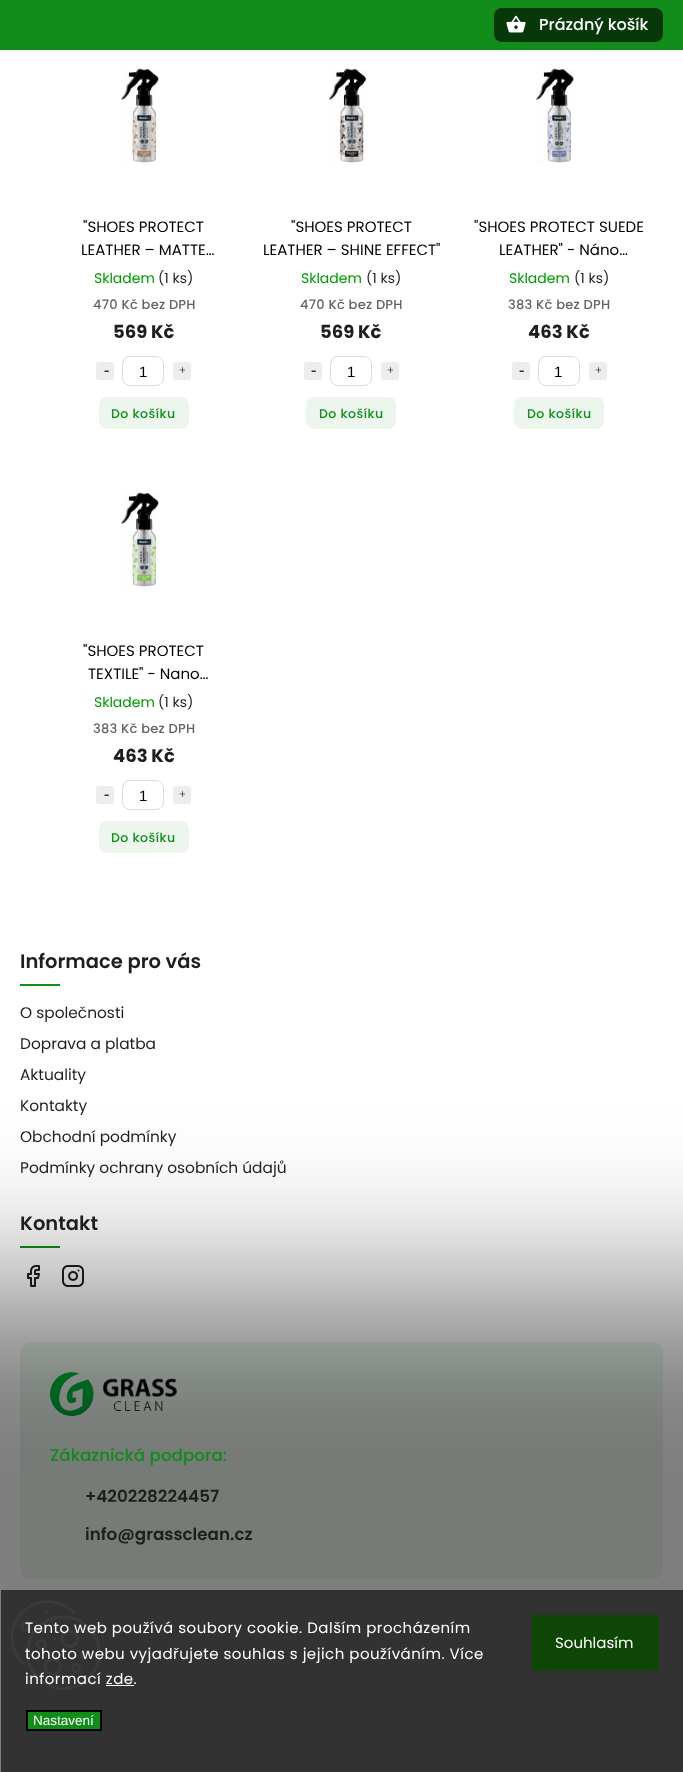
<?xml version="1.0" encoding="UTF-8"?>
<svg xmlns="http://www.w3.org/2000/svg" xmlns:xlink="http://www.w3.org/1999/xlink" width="683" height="1772">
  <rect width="100%" height="100%" fill="#ffffff" />
  <rect width="683" height="50" fill="#000000" fill-opacity="0.1" filter="blur(2.5px)" />
  <rect width="683" height="50" fill="#118c1a" />
  <rect x="494" y="8" width="169" height="34" rx="8" fill="#07380a" />
  <image x="506" y="15" width="20" height="18" xlink:href="image1.png" />
  <image x="121" y="68" width="38" height="95" xlink:href="image2.png" />
  <rect x="96" y="362" width="18" height="18" rx="3" fill="#ededed" />
  <rect x="122.5" y="356.5" width="41" height="29" rx="7.5" fill="none" stroke="#dbdbdb" />
  <rect x="173" y="362" width="18" height="18" rx="3" fill="#ededed" />
  <rect x="99" y="397" width="90" height="32" rx="8" fill="#ecf6ed" />
  <image x="329" y="68" width="38" height="95" xlink:href="image3.png" />
  <rect x="304" y="362" width="18" height="18" rx="3" fill="#ededed" />
  <rect x="330.5" y="356.5" width="41" height="29" rx="7.5" fill="none" stroke="#dbdbdb" />
  <rect x="381" y="362" width="18" height="18" rx="3" fill="#ededed" />
  <rect x="306" y="397" width="90" height="32" rx="8" fill="#ecf6ed" />
  <image x="536" y="68" width="38" height="95" xlink:href="image4.png" />
  <rect x="512" y="362" width="18" height="18" rx="3" fill="#ededed" />
  <rect x="538.5" y="356.5" width="41" height="29" rx="7.5" fill="none" stroke="#dbdbdb" />
  <rect x="589" y="362" width="18" height="18" rx="3" fill="#ededed" />
  <rect x="514" y="397" width="90" height="32" rx="8" fill="#ecf6ed" />
  <image x="121" y="492" width="38" height="95" xlink:href="image5.png" />
  <rect x="96" y="786" width="18" height="18" rx="3" fill="#ededed" />
  <rect x="122.5" y="780.5" width="41" height="29" rx="7.5" fill="none" stroke="#dbdbdb" />
  <rect x="173" y="786" width="18" height="18" rx="3" fill="#ededed" />
  <rect x="99" y="821" width="90" height="32" rx="8" fill="#ecf6ed" />
  <rect x="20" y="984" width="40" height="2" fill="#118c1a" />
  <rect x="20" y="1246" width="40" height="2" fill="#118c1a" />
  <image x="27" y="1265" width="13" height="22" xlink:href="image6.png" />
  <image x="62" y="1265" width="22" height="22" xlink:href="image7.png" />
  <rect x="20" y="1342" width="643" height="237" rx="10" fill="#ecf6ed" />
  <image x="50" y="1372" width="127" height="44" xlink:href="image8.png" />
  <rect x="-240" y="1289" width="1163" height="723" fill="#000000" fill-opacity="0.5" filter="blur(80px)" />
  <rect x="1" y="1590" width="682" height="182" fill="#323232" />
  <image x="11" y="1600" width="89" height="90" xlink:href="image9.png" />
  <rect x="106" y="1685" width="28" height="1" fill="#ffffff" />
  <rect x="27" y="1711" width="74" height="19" fill="#118c1a" stroke="#000000" stroke-width="2" />
  <rect x="532" y="1615" width="127" height="56" fill="#0e4606" />
  <text x="539" y="30" style="font-family: Poppins; font-size: 16px; font-weight: 500; fill: #ffffff">Prázdný košík</text>
  <text x="83" y="232" style="font-family: Poppins; font-size: 15px; fill: #000000">"SHOES PROTECT</text>
  <text x="81" y="255" style="font-family: Poppins; font-size: 15px; fill: #000000">LEATHER – MATTE…</text>
  <text x="94" y="283" style="font-family: Poppins; font-size: 14px; fill: #009901">Skladem</text>
  <text x="158" y="283" style="font-family: Poppins; font-size: 14px; fill: #222222">(1 ks)</text>
  <text x="93" y="309" style="font-family: Poppins; font-size: 13px; font-weight: 500; letter-spacing: 0.25px; fill: #646464">470 Kč bez DPH</text>
  <text x="113" y="338" style="font-family: Poppins; font-size: 18px; font-weight: bold; fill: #1e1e1c">569 Kč</text>
  <text x="104" y="375" style="font-family: Liberation Serif; font-size: 16px; fill: #000000">-</text>
  <text x="139" y="377" style="font-family: Liberation Sans; font-size: 15px; fill: #000000">1</text>
  <text x="179" y="374" style="font-family: Liberation Serif; font-size: 12px; letter-spacing: 1px; fill: #000000">+</text>
  <text x="111" y="418" style="font-family: Poppins; font-size: 12.5px; font-weight: 500; letter-spacing: 0.5px; fill: #118c1a">Do košíku</text>
  <text x="291" y="232" style="font-family: Poppins; font-size: 15px; fill: #000000">"SHOES PROTECT</text>
  <text x="263" y="255" style="font-family: Poppins; font-size: 15px; fill: #000000">LEATHER – SHINE EFFECT"</text>
  <text x="301" y="283" style="font-family: Poppins; font-size: 14px; fill: #009901">Skladem</text>
  <text x="366" y="283" style="font-family: Poppins; font-size: 14px; fill: #222222">(1 ks)</text>
  <text x="300" y="309" style="font-family: Poppins; font-size: 13px; font-weight: 500; letter-spacing: 0.25px; fill: #646464">470 Kč bez DPH</text>
  <text x="320" y="338" style="font-family: Poppins; font-size: 18px; font-weight: bold; fill: #1e1e1c">569 Kč</text>
  <text x="311" y="375" style="font-family: Liberation Serif; font-size: 16px; fill: #000000">-</text>
  <text x="347" y="377" style="font-family: Liberation Sans; font-size: 15px; fill: #000000">1</text>
  <text x="387" y="374" style="font-family: Liberation Serif; font-size: 12px; letter-spacing: 1px; fill: #000000">+</text>
  <text x="319" y="418" style="font-family: Poppins; font-size: 12.5px; font-weight: 500; letter-spacing: 0.5px; fill: #118c1a">Do košíku</text>
  <text x="474" y="232" style="font-family: Poppins; font-size: 15px; fill: #000000">"SHOES PROTECT SUEDE</text>
  <text x="499" y="255" style="font-family: Poppins; font-size: 15px; fill: #000000">LEATHER" - Náno…</text>
  <text x="509" y="283" style="font-family: Poppins; font-size: 14px; fill: #009901">Skladem</text>
  <text x="574" y="283" style="font-family: Poppins; font-size: 14px; fill: #222222">(1 ks)</text>
  <text x="508" y="309" style="font-family: Poppins; font-size: 13px; font-weight: 500; letter-spacing: 0.25px; fill: #646464">383 Kč bez DPH</text>
  <text x="528" y="338" style="font-family: Poppins; font-size: 18px; font-weight: bold; fill: #1e1e1c">463 Kč</text>
  <text x="519" y="375" style="font-family: Liberation Serif; font-size: 16px; fill: #000000">-</text>
  <text x="554" y="377" style="font-family: Liberation Sans; font-size: 15px; fill: #000000">1</text>
  <text x="595" y="374" style="font-family: Liberation Serif; font-size: 12px; letter-spacing: 1px; fill: #000000">+</text>
  <text x="527" y="418" style="font-family: Poppins; font-size: 12.5px; font-weight: 500; letter-spacing: 0.5px; fill: #118c1a">Do košíku</text>
  <text x="83" y="656" style="font-family: Poppins; font-size: 15px; fill: #000000">"SHOES PROTECT</text>
  <text x="88" y="679" style="font-family: Poppins; font-size: 15px; fill: #000000">TEXTILE" - Nano…</text>
  <text x="94" y="707" style="font-family: Poppins; font-size: 14px; fill: #009901">Skladem</text>
  <text x="158" y="707" style="font-family: Poppins; font-size: 14px; fill: #222222">(1 ks)</text>
  <text x="93" y="733" style="font-family: Poppins; font-size: 13px; font-weight: 500; letter-spacing: 0.25px; fill: #646464">383 Kč bez DPH</text>
  <text x="113" y="762" style="font-family: Poppins; font-size: 18px; font-weight: bold; fill: #1e1e1c">463 Kč</text>
  <text x="104" y="799" style="font-family: Liberation Serif; font-size: 16px; fill: #000000">-</text>
  <text x="139" y="801" style="font-family: Liberation Sans; font-size: 15px; fill: #000000">1</text>
  <text x="179" y="798" style="font-family: Liberation Serif; font-size: 12px; letter-spacing: 1px; fill: #000000">+</text>
  <text x="111" y="842" style="font-family: Poppins; font-size: 12.5px; font-weight: 500; letter-spacing: 0.5px; fill: #118c1a">Do košíku</text>
  <text x="20" y="968" style="font-family: Poppins; font-size: 19.5px; font-weight: 600; fill: #1e1e1c">Informace pro vás</text>
  <text x="20" y="1018" style="font-family: Poppins; font-size: 15.4px; fill: #1e1e1c">O společnosti</text>
  <text x="20" y="1049" style="font-family: Poppins; font-size: 15.4px; fill: #1e1e1c">Doprava a platba</text>
  <text x="20" y="1080" style="font-family: Poppins; font-size: 15.4px; fill: #1e1e1c">Aktuality</text>
  <text x="20" y="1111" style="font-family: Poppins; font-size: 15.4px; fill: #1e1e1c">Kontakty</text>
  <text x="20" y="1142" style="font-family: Poppins; font-size: 15.4px; fill: #1e1e1c">Obchodní podmínky</text>
  <text x="20" y="1173" style="font-family: Poppins; font-size: 15.4px; fill: #1e1e1c">Podmínky ochrany osobních údajů</text>
  <text x="20" y="1230" style="font-family: Poppins; font-size: 19.5px; font-weight: 600; fill: #1e1e1c">Kontakt</text>
  <text x="50" y="1461" style="font-family: Poppins; font-size: 16.75px; font-weight: 500; fill: #118c1a">Zákaznická podpora:</text>
  <text x="85" y="1502" style="font-family: Poppins; font-size: 16.75px; font-weight: 600; fill: #1e1e1c">+420228224457</text>
  <text x="85" y="1540" style="font-family: Poppins; font-size: 16.75px; font-weight: 600; fill: #1e1e1c">info@grassclean.cz</text>
  <text x="25" y="1633" style="font-family: Poppins; font-size: 15px; letter-spacing: 0.5px; fill: #ffffff">Tento web používá soubory cookie. Dalším procházením</text>
  <text x="25" y="1659" style="font-family: Poppins; font-size: 15px; letter-spacing: 0.5px; fill: #ffffff">tohoto webu vyjadřujete souhlas s jejich používáním. Více</text>
  <text x="25" y="1684" style="font-family: Poppins; font-size: 15px; letter-spacing: 0.5px; fill: #ffffff">informací zde.</text>
  <text x="33" y="1725" style="font-family: Liberation Sans; font-size: 13.5px; fill: #ffffff">Nastavení</text>
  <text x="555" y="1648" style="font-family: Poppins; font-size: 15px; fill: #ffffff">Souhlasím</text>
</svg>
